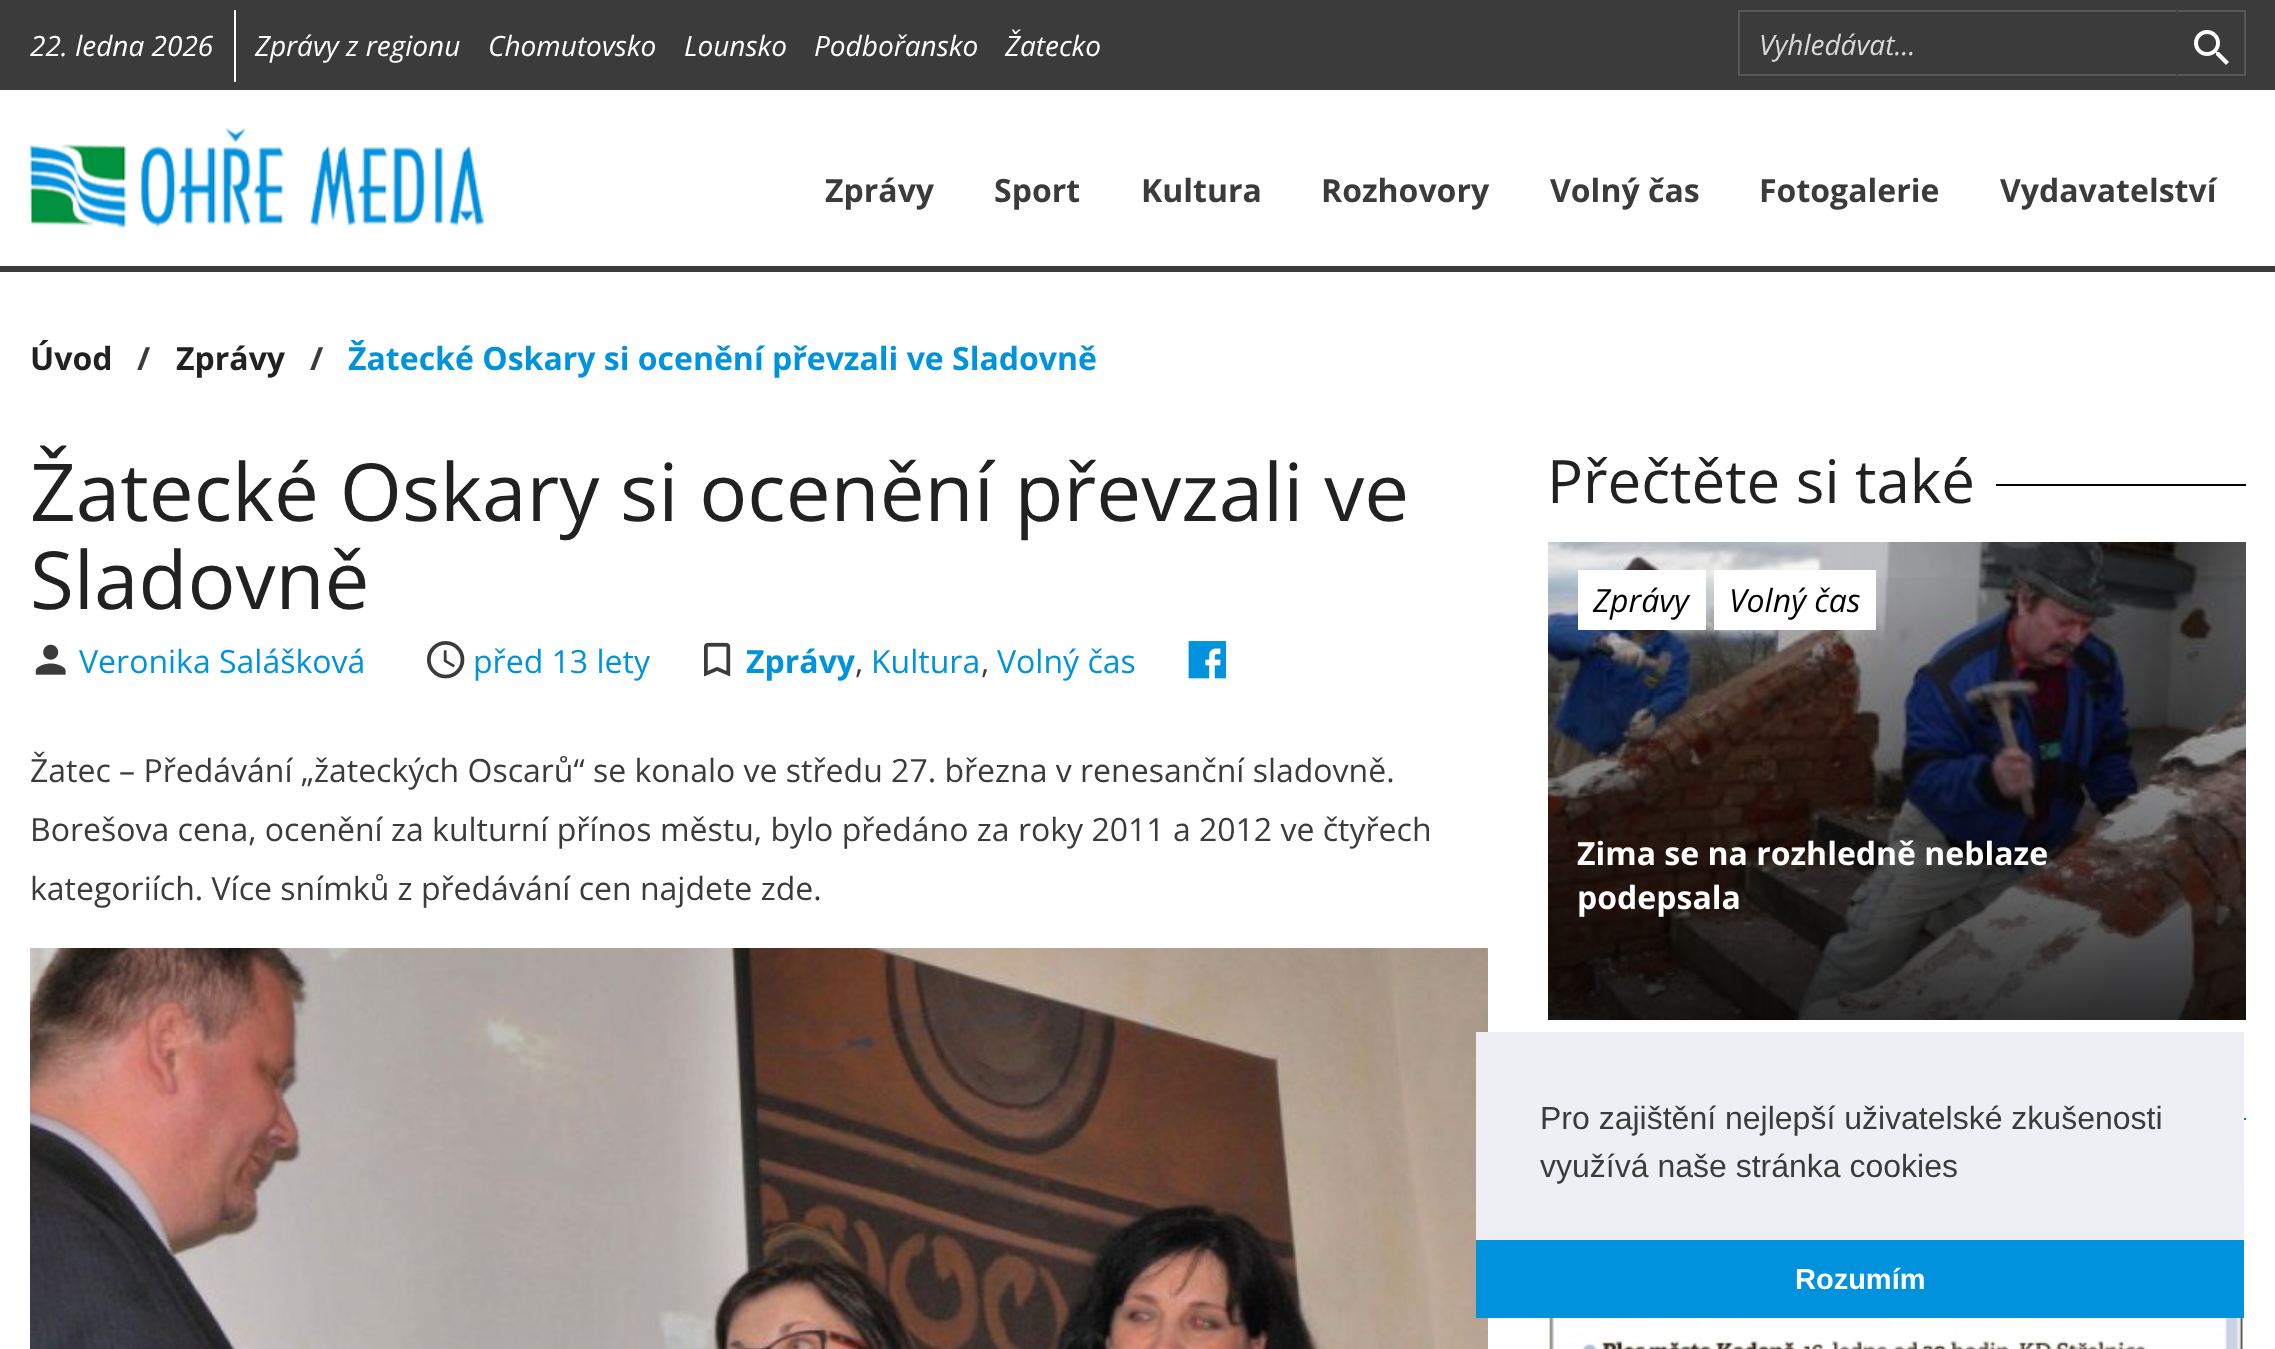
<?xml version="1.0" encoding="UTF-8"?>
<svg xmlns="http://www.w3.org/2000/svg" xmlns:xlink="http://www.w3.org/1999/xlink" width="2275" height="1349">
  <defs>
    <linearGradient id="g1" gradientUnits="userSpaceOnUse" x1="1897" y1="566" x2="1897" y2="1020"><stop offset="0" stop-color="#000000" stop-opacity="0" /><stop offset="1" stop-color="#000000" stop-opacity="0.8" /></linearGradient>
  </defs>
  <rect width="100%" height="100%" fill="#ffffff" />
  <rect width="2275" height="90" fill="#3b3b3b" />
  <rect x="234" y="10" width="2" height="72" fill="#ffffff" />
  <path d="M 1738 10 h 440 l -2 2 h -436 z" fill="#585858" />
  <path d="M 2178 76 h -440 l 2 -2 h 436 z" fill="#585858" />
  <rect x="1738" y="10" width="2" height="66" fill="#585858" />
  <rect x="2178" y="10" width="68" height="2" fill="#585858" />
  <rect x="2244" y="10" width="2" height="66" fill="#585858" />
  <rect x="2178" y="74" width="68" height="2" fill="#585858" />
  <image x="2194" y="30" width="35" height="35" xlink:href="image1.png" />
  <rect y="266" width="2275" height="6" fill="#3b3b3b" />
  <image x="30" y="127" width="454" height="101" xlink:href="image2.png" />
  <image x="35" y="644" width="31" height="31" xlink:href="image3.png" />
  <image x="427" y="641" width="38" height="38" xlink:href="image4.png" />
  <image x="704" y="642" width="27" height="35" xlink:href="image5.png" />
  <image x="1188" y="641" width="38" height="38" xlink:href="image6.png" />
  <image x="30" y="948" width="1458" height="401" xlink:href="image7.png" />
  <rect x="1996" y="484" width="250" height="2" fill="#000000" />
  <image x="1548" y="542" width="698" height="478" xlink:href="image8.png" />
  <rect x="1548" y="578" width="698" height="442" fill="url(#g1)" />
  <rect x="1578" y="570" width="128" height="60" fill="#ffffff" />
  <rect x="1714" y="570" width="162" height="60" fill="#ffffff" />
  <rect x="2244" y="1118" width="2" height="2" fill="#00923f" />
  <image x="1548" y="1180" width="698" height="169" xlink:href="image9.png" />
  <rect x="1476" y="1032" width="768" height="208" fill="#edeff5" />
  <rect x="1476" y="1240" width="768" height="78" fill="#0092dd" />
  <text x="30" y="56" style="font-family: Open Sans; font-size: 28px; font-style: italic; fill: #ffffff">22. ledna 2026</text>
  <text x="255" y="56" style="font-family: Open Sans; font-size: 28px; font-style: italic; fill: #ffffff">Zprávy z regionu</text>
  <text x="488" y="56" style="font-family: Open Sans; font-size: 28px; font-style: italic; fill: #ffffff">Chomutovsko</text>
  <text x="684" y="56" style="font-family: Open Sans; font-size: 28px; font-style: italic; fill: #ffffff">Lounsko</text>
  <text x="814" y="56" style="font-family: Open Sans; font-size: 28px; font-style: italic; fill: #ffffff">Podbořansko</text>
  <text x="1005" y="56" style="font-family: Open Sans; font-size: 28px; font-style: italic; fill: #ffffff">Žatecko</text>
  <text x="1759" y="55" style="font-family: Open Sans; font-size: 28px; font-style: italic; fill: #d9d9d9">Vyhledávat...</text>
  <text x="825" y="202" style="font-family: Open Sans; font-size: 32px; font-weight: bold; fill: #3b3b3b">Zprávy</text>
  <text x="994" y="202" style="font-family: Open Sans; font-size: 32px; font-weight: bold; fill: #3b3b3b">Sport</text>
  <text x="1141" y="202" style="font-family: Open Sans; font-size: 32px; font-weight: bold; fill: #3b3b3b">Kultura</text>
  <text x="1321" y="202" style="font-family: Open Sans; font-size: 32px; font-weight: bold; fill: #3b3b3b">Rozhovory</text>
  <text x="1550" y="202" style="font-family: Open Sans; font-size: 32px; font-weight: bold; fill: #3b3b3b">Volný čas</text>
  <text x="1759" y="202" style="font-family: Open Sans; font-size: 32px; font-weight: bold; fill: #3b3b3b">Fotogalerie</text>
  <text x="2000" y="202" style="font-family: Open Sans; font-size: 32px; font-weight: bold; fill: #3b3b3b">Vydavatelství</text>
  <text x="30" y="370" style="font-family: Open Sans; font-size: 32px; font-weight: bold; fill: #212121">Úvod</text>
  <text x="137" y="370" style="font-family: Open Sans; font-size: 32px; font-weight: bold; fill: #3b3b3b">/</text>
  <text x="176" y="370" style="font-family: Open Sans; font-size: 32px; font-weight: bold; fill: #212121">Zprávy</text>
  <text x="310" y="370" style="font-family: Open Sans; font-size: 32px; font-weight: bold; fill: #3b3b3b">/</text>
  <text x="348" y="370" style="font-family: Open Sans; font-size: 32px; font-weight: bold; fill: #0093dd">Žatecké Oskary si ocenění převzali ve Sladovně</text>
  <text x="30" y="521" style="font-family: Open Sans; font-size: 80px; fill: #212121">Žatecké Oskary si ocenění převzali ve</text>
  <text x="30" y="609" style="font-family: Open Sans; font-size: 80px; fill: #212121">Sladovně</text>
  <text x="79" y="673" style="font-family: Open Sans; font-size: 32px; fill: #0093dd">Veronika Salášková</text>
  <text x="473" y="673" style="font-family: Open Sans; font-size: 32px; fill: #0093dd">před 13 lety</text>
  <text x="746" y="673" style="font-family: Open Sans; font-size: 32px; font-weight: bold; fill: #0093dd">Zprávy</text>
  <text x="855" y="673" style="font-family: Open Sans; font-size: 32px; fill: #3b3b3b">,</text>
  <text x="871" y="673" style="font-family: Open Sans; font-size: 32px; fill: #0093dd">Kultura</text>
  <text x="981" y="673" style="font-family: Open Sans; font-size: 32px; fill: #3b3b3b">,</text>
  <text x="997" y="673" style="font-family: Open Sans; font-size: 32px; fill: #0093dd">Volný čas</text>
  <text x="30" y="782" style="font-family: Open Sans; font-size: 32px; fill: #3b3b3b">Žatec – Předávání „žateckých Oscarů“ se konalo ve středu 27. března v renesanční sladovně.</text>
  <text x="30" y="841" style="font-family: Open Sans; font-size: 32px; fill: #3b3b3b">Borešova cena, ocenění za kulturní přínos městu, bylo předáno za roky 2011 a 2012 ve čtyřech</text>
  <text x="30" y="900" style="font-family: Open Sans; font-size: 32px; fill: #3b3b3b">kategoriích. Více snímků z předávání cen najdete zde.</text>
  <text x="1547" y="503" style="font-family: Open Sans; font-size: 60px; fill: #212121">Přečtěte si také</text>
  <text x="1593" y="612" style="font-family: Open Sans; font-size: 32px; font-style: italic; fill: #000000">Zprávy</text>
  <text x="1729" y="612" style="font-family: Open Sans; font-size: 32px; font-style: italic; fill: #000000">Volný čas</text>
  <text x="1577" y="865" style="font-family: Open Sans; font-size: 32px; font-weight: bold; fill: #ffffff">Zima se na rozhledně neblaze</text>
  <text x="1577" y="909" style="font-family: Open Sans; font-size: 32px; font-weight: bold; fill: #ffffff">podepsala</text>
  <text x="1540" y="1129" style="font-family: Liberation Sans; font-size: 32px; fill: #3b3b3b">Pro zajištění nejlepší uživatelské zkušenosti</text>
  <text x="1540" y="1177" style="font-family: Liberation Sans; font-size: 32px; fill: #3b3b3b">využívá naše stránka cookies</text>
  <text x="1795" y="1289" style="font-family: Liberation Sans; font-size: 29px; font-weight: bold; fill: #ffffff">Rozumím</text>
</svg>
